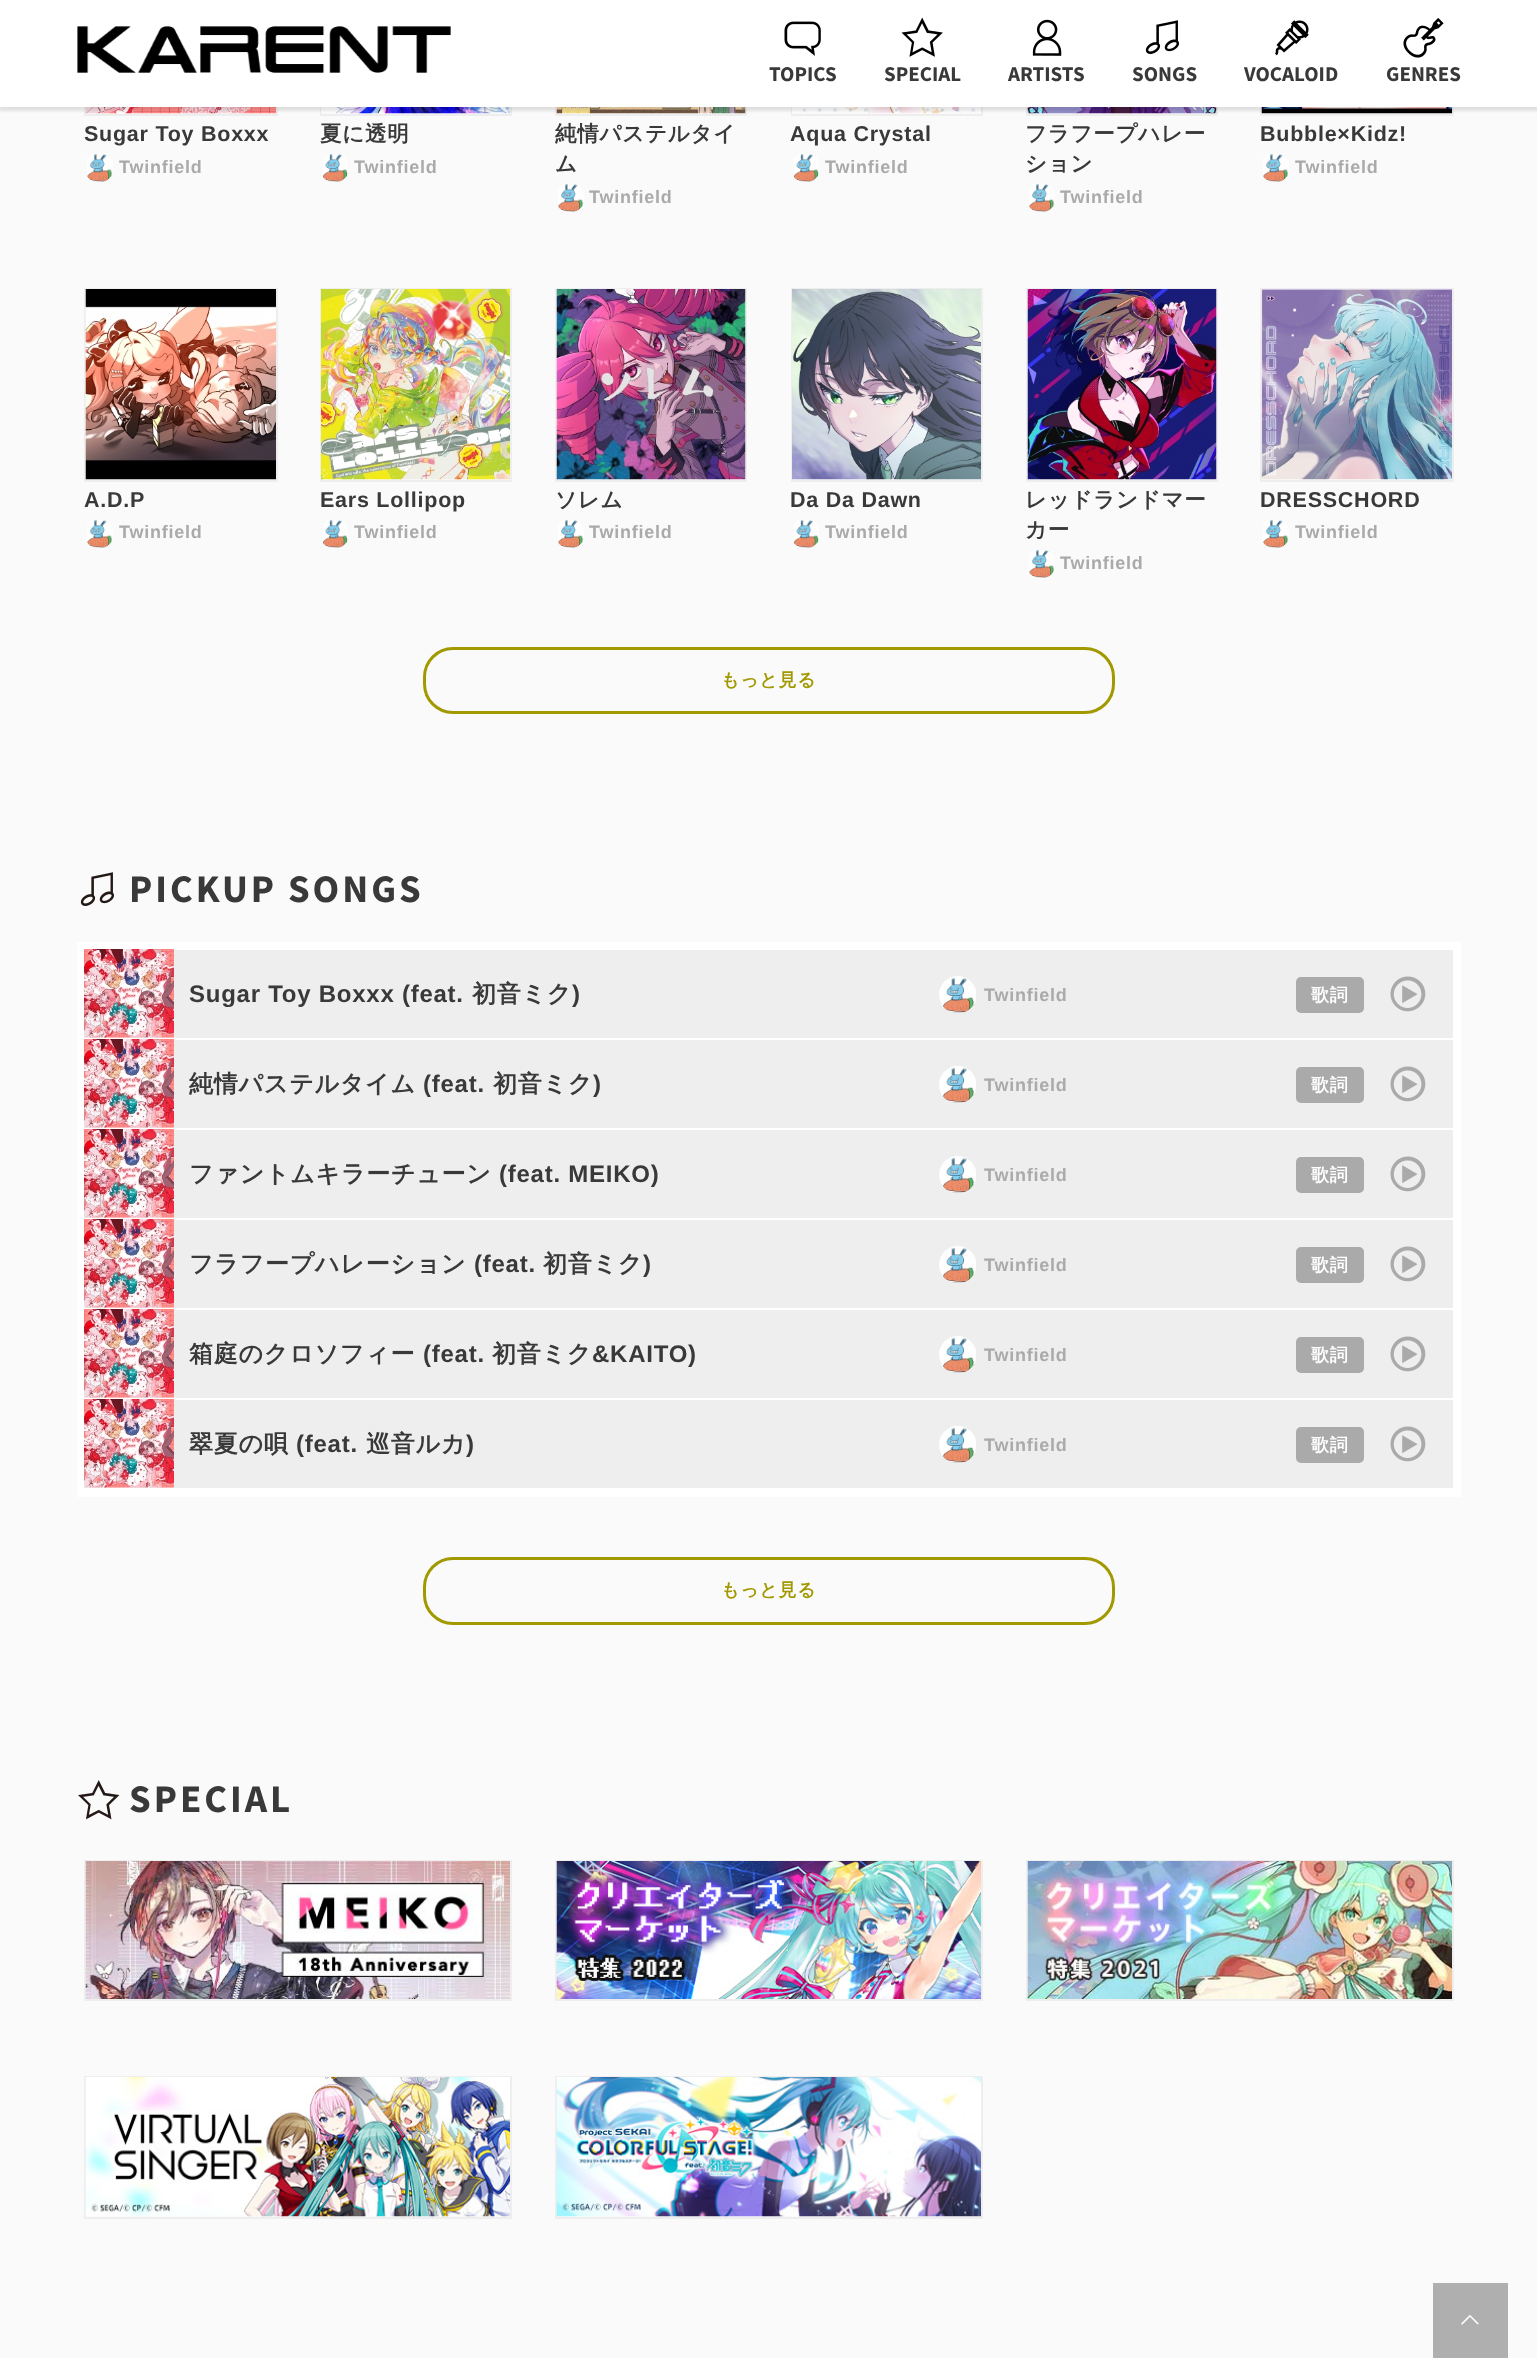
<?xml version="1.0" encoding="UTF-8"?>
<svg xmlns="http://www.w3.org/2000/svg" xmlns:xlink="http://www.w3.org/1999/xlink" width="1537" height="2358">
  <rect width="100%" height="100%" fill="#fafafa" />
  <rect x="85" y="-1" width="192" height="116" fill="none" stroke="#eeeeee" stroke-width="2" />
  <image x="85" y="107" width="191" height="7" xlink:href="image8.png" />
  <rect x="321" y="-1" width="190" height="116" fill="none" stroke="#eeeeee" stroke-width="2" />
  <image x="321" y="107" width="189" height="7" xlink:href="image10.png" />
  <rect x="556" y="-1" width="190" height="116" fill="none" stroke="#eeeeee" stroke-width="2" />
  <image x="556" y="107" width="190" height="7" xlink:href="image12.png" />
  <rect x="792" y="-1" width="190" height="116" fill="none" stroke="#eeeeee" stroke-width="2" />
  <image x="792" y="107" width="189" height="7" xlink:href="image14.png" />
  <rect x="1027" y="-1" width="190" height="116" fill="none" stroke="#eeeeee" stroke-width="2" />
  <image x="1027" y="107" width="190" height="7" xlink:href="image16.png" />
  <rect x="1261" y="-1" width="192" height="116" fill="none" stroke="#eeeeee" stroke-width="2" />
  <image x="1261" y="107" width="191" height="7" xlink:href="image18.png" />
  <rect x="-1" y="-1" width="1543" height="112" fill="#000000" fill-opacity="0.1" filter="blur(1.5px)" />
  <rect width="1537" height="107" fill="#ffffff" />
  <image x="77" y="26" width="374" height="47" xlink:href="image1.png" />
  <image x="784" y="21" width="37" height="35" xlink:href="image2.png" />
  <image x="901" y="17" width="42" height="40" xlink:href="image3.png" />
  <image x="1032" y="19" width="30" height="37" xlink:href="image4.png" />
  <image x="1145" y="20" width="34" height="34" xlink:href="image5.png" />
  <image x="1275" y="20" width="34" height="36" xlink:href="image6.png" />
  <image x="1403" y="18" width="41" height="40" xlink:href="image7.png" />
  <image x="87" y="154" width="26" height="28" xlink:href="image9.png" />
  <image x="323" y="154" width="25" height="28" xlink:href="image11.png" />
  <image x="558" y="184" width="26" height="28" xlink:href="image13.png" />
  <image x="794" y="154" width="25" height="28" xlink:href="image15.png" />
  <image x="1029" y="184" width="26" height="28" xlink:href="image17.png" />
  <image x="1263" y="154" width="26" height="28" xlink:href="image19.png" />
  <rect x="85" y="289" width="192" height="192" fill="none" stroke="#eeeeee" stroke-width="2" />
  <image x="85" y="289" width="191" height="191" xlink:href="image20.png" />
  <image x="87" y="520" width="26" height="28" xlink:href="image21.png" />
  <rect x="321" y="289" width="190" height="192" fill="none" stroke="#eeeeee" stroke-width="2" />
  <image x="321" y="289" width="189" height="191" xlink:href="image22.png" />
  <image x="323" y="520" width="25" height="28" xlink:href="image23.png" />
  <rect x="556" y="289" width="190" height="192" fill="none" stroke="#eeeeee" stroke-width="2" />
  <image x="556" y="289" width="190" height="191" xlink:href="image24.png" />
  <image x="558" y="520" width="26" height="28" xlink:href="image25.png" />
  <rect x="792" y="289" width="190" height="192" fill="none" stroke="#eeeeee" stroke-width="2" />
  <image x="792" y="289" width="189" height="191" xlink:href="image26.png" />
  <image x="794" y="520" width="25" height="28" xlink:href="image27.png" />
  <rect x="1027" y="289" width="190" height="192" fill="none" stroke="#eeeeee" stroke-width="2" />
  <image x="1027" y="289" width="190" height="191" xlink:href="image28.png" />
  <image x="1029" y="550" width="26" height="28" xlink:href="image29.png" />
  <rect x="1261" y="289" width="192" height="192" fill="none" stroke="#eeeeee" stroke-width="2" />
  <image x="1261" y="289" width="191" height="191" xlink:href="image30.png" />
  <image x="1263" y="520" width="26" height="28" xlink:href="image31.png" />
  <rect x="424.5" y="648.5" width="689" height="64" rx="28.5" fill="none" stroke="#a29900" stroke-width="3" />
  <image x="80" y="872" width="34" height="34" xlink:href="image32.png" />
  <rect x="85" y="950" width="1368" height="538" fill="#eeeeee" />
  <rect x="81" y="946" width="1376" height="547" fill="none" stroke="#ffffff" stroke-width="8" />
  <rect x="84" y="1038" width="1370" height="2" fill="#ffffff" />
  <image x="84" y="949" width="90" height="89" xlink:href="image33.png" />
  <image x="939" y="976" width="37" height="37" xlink:href="image34.png" />
  <rect x="1296" y="977" width="68" height="36" rx="5" fill="#aaaaaa" />
  <image x="1390" y="976" width="36" height="36" xlink:href="image35.png" />
  <rect x="84" y="1128" width="1370" height="2" fill="#ffffff" />
  <image x="84" y="1039" width="90" height="89" xlink:href="image33.png" />
  <image x="939" y="1066" width="37" height="37" xlink:href="image36.png" />
  <rect x="1296" y="1067" width="68" height="36" rx="5" fill="#aaaaaa" />
  <image x="1390" y="1066" width="36" height="36" xlink:href="image35.png" />
  <rect x="84" y="1218" width="1370" height="2" fill="#ffffff" />
  <image x="84" y="1129" width="90" height="89" xlink:href="image33.png" />
  <image x="939" y="1156" width="37" height="37" xlink:href="image37.png" />
  <rect x="1296" y="1157" width="68" height="36" rx="5" fill="#aaaaaa" />
  <image x="1390" y="1156" width="36" height="36" xlink:href="image35.png" />
  <rect x="84" y="1308" width="1370" height="2" fill="#ffffff" />
  <image x="84" y="1219" width="90" height="89" xlink:href="image33.png" />
  <image x="939" y="1246" width="37" height="37" xlink:href="image38.png" />
  <rect x="1296" y="1247" width="68" height="36" rx="5" fill="#aaaaaa" />
  <image x="1390" y="1246" width="36" height="36" xlink:href="image35.png" />
  <rect x="84" y="1398" width="1370" height="2" fill="#ffffff" />
  <image x="84" y="1309" width="90" height="89" xlink:href="image33.png" />
  <image x="939" y="1336" width="37" height="37" xlink:href="image36.png" />
  <rect x="1296" y="1337" width="68" height="36" rx="5" fill="#aaaaaa" />
  <image x="1390" y="1336" width="36" height="36" xlink:href="image35.png" />
  <rect x="84" y="1488" width="1370" height="1" fill="#ffffff" />
  <image x="84" y="1399" width="90" height="89" xlink:href="image33.png" />
  <image x="939" y="1426" width="37" height="37" xlink:href="image39.png" />
  <rect x="1296" y="1427" width="68" height="36" rx="5" fill="#aaaaaa" />
  <image x="1390" y="1426" width="36" height="36" xlink:href="image35.png" />
  <rect x="424.5" y="1558.5" width="689" height="65" rx="28.5" fill="none" stroke="#a29900" stroke-width="3" />
  <image x="78" y="1780" width="42" height="40" xlink:href="image40.png" />
  <rect x="85" y="1861" width="426" height="139" fill="none" stroke="#eeeeee" stroke-width="2" />
  <image x="85" y="1861" width="425" height="138" xlink:href="image41.png" />
  <rect x="556" y="1861" width="426" height="139" fill="none" stroke="#eeeeee" stroke-width="2" />
  <image x="556" y="1861" width="425" height="138" xlink:href="image42.png" />
  <rect x="1027" y="1861" width="426" height="139" fill="none" stroke="#eeeeee" stroke-width="2" />
  <image x="1027" y="1861" width="425" height="138" xlink:href="image43.png" />
  <rect x="85" y="2077" width="426" height="141" fill="none" stroke="#eeeeee" stroke-width="2" />
  <image x="85" y="2077" width="425" height="140" xlink:href="image44.png" />
  <rect x="556" y="2077" width="426" height="141" fill="none" stroke="#eeeeee" stroke-width="2" />
  <image x="556" y="2077" width="425" height="140" xlink:href="image45.png" />
  <rect x="1433" y="2283" width="75" height="75" fill="#afafaf" />
  <image x="1461" y="2315" width="18" height="10" xlink:href="image46.png" />
  <text x="769" y="81" style="font-family: Source Sans Pro; font-size: 21px; font-weight: bold; fill: #393939">TOPICS</text>
  <text x="884" y="81" style="font-family: Source Sans Pro; font-size: 21px; font-weight: bold; fill: #393939">SPECIAL</text>
  <text x="1008" y="81" style="font-family: Source Sans Pro; font-size: 21px; font-weight: bold; fill: #393939">ARTISTS</text>
  <text x="1132" y="81" style="font-family: Source Sans Pro; font-size: 21px; font-weight: bold; fill: #393939">SONGS</text>
  <text x="1244" y="81" style="font-family: Source Sans Pro; font-size: 21px; font-weight: bold; fill: #393939">VOCALOID</text>
  <text x="1386" y="81" style="font-family: Source Sans Pro; font-size: 21px; font-weight: bold; fill: #393939">GENRES</text>
  <text x="84" y="141" style="font-family: Liberation Sans; font-size: 21.5px; font-weight: bold; letter-spacing: 0.75px; fill: #393939">Sugar Toy Boxxx</text>
  <text x="119" y="173" style="font-family: Liberation Sans; font-size: 18px; font-weight: bold; letter-spacing: 0.75px; fill: #aaaaaa">Twinfield</text>
  <text x="320" y="141" style="font-family: WenQuanYi Zen Hei; font-size: 21.5px; font-weight: bold; letter-spacing: 0.75px; fill: #393939">夏に透明</text>
  <text x="354" y="173" style="font-family: Liberation Sans; font-size: 18px; font-weight: bold; letter-spacing: 0.75px; fill: #aaaaaa">Twinfield</text>
  <text x="555" y="141" style="font-family: WenQuanYi Zen Hei; font-size: 21.5px; font-weight: bold; letter-spacing: 0.75px; fill: #393939">純情パステルタイ</text>
  <text x="555" y="171" style="font-family: WenQuanYi Zen Hei; font-size: 21.5px; font-weight: bold; letter-spacing: 0.75px; fill: #393939">ム</text>
  <text x="589" y="203" style="font-family: Liberation Sans; font-size: 18px; font-weight: bold; letter-spacing: 0.75px; fill: #aaaaaa">Twinfield</text>
  <text x="790" y="141" style="font-family: Liberation Sans; font-size: 21.5px; font-weight: bold; letter-spacing: 0.75px; fill: #393939">Aqua Crystal</text>
  <text x="825" y="173" style="font-family: Liberation Sans; font-size: 18px; font-weight: bold; letter-spacing: 0.75px; fill: #aaaaaa">Twinfield</text>
  <text x="1025" y="141" style="font-family: WenQuanYi Zen Hei; font-size: 21.5px; font-weight: bold; letter-spacing: 0.75px; fill: #393939">フラフープハレー</text>
  <text x="1025" y="171" style="font-family: WenQuanYi Zen Hei; font-size: 21.5px; font-weight: bold; letter-spacing: 0.75px; fill: #393939">ション</text>
  <text x="1060" y="203" style="font-family: Liberation Sans; font-size: 18px; font-weight: bold; letter-spacing: 0.75px; fill: #aaaaaa">Twinfield</text>
  <text x="1260" y="141" style="font-family: Liberation Sans; font-size: 21.5px; font-weight: bold; letter-spacing: 0.75px; fill: #393939">Bubble×Kidz!</text>
  <text x="1295" y="173" style="font-family: Liberation Sans; font-size: 18px; font-weight: bold; letter-spacing: 0.75px; fill: #aaaaaa">Twinfield</text>
  <text x="84" y="507" style="font-family: Liberation Sans; font-size: 21.5px; font-weight: bold; letter-spacing: 0.75px; fill: #393939">A.D.P</text>
  <text x="119" y="538" style="font-family: Liberation Sans; font-size: 18px; font-weight: bold; letter-spacing: 0.75px; fill: #aaaaaa">Twinfield</text>
  <text x="320" y="507" style="font-family: Liberation Sans; font-size: 21.5px; font-weight: bold; letter-spacing: 0.75px; fill: #393939">Ears Lollipop</text>
  <text x="354" y="538" style="font-family: Liberation Sans; font-size: 18px; font-weight: bold; letter-spacing: 0.75px; fill: #aaaaaa">Twinfield</text>
  <text x="555" y="507" style="font-family: WenQuanYi Zen Hei; font-size: 21.5px; font-weight: bold; letter-spacing: 0.75px; fill: #393939">ソレム</text>
  <text x="589" y="538" style="font-family: Liberation Sans; font-size: 18px; font-weight: bold; letter-spacing: 0.75px; fill: #aaaaaa">Twinfield</text>
  <text x="790" y="507" style="font-family: Liberation Sans; font-size: 21.5px; font-weight: bold; letter-spacing: 0.75px; fill: #393939">Da Da Dawn</text>
  <text x="825" y="538" style="font-family: Liberation Sans; font-size: 18px; font-weight: bold; letter-spacing: 0.75px; fill: #aaaaaa">Twinfield</text>
  <text x="1025" y="507" style="font-family: WenQuanYi Zen Hei; font-size: 21.5px; font-weight: bold; letter-spacing: 0.75px; fill: #393939">レッドランドマー</text>
  <text x="1025" y="537" style="font-family: WenQuanYi Zen Hei; font-size: 21.5px; font-weight: bold; letter-spacing: 0.75px; fill: #393939">カー</text>
  <text x="1060" y="569" style="font-family: Liberation Sans; font-size: 18px; font-weight: bold; letter-spacing: 0.75px; fill: #aaaaaa">Twinfield</text>
  <text x="1260" y="507" style="font-family: Liberation Sans; font-size: 21.5px; font-weight: bold; letter-spacing: 0.75px; fill: #393939">DRESSCHORD</text>
  <text x="1295" y="538" style="font-family: Liberation Sans; font-size: 18px; font-weight: bold; letter-spacing: 0.75px; fill: #aaaaaa">Twinfield</text>
  <text x="721" y="686" style="font-family: WenQuanYi Zen Hei; font-size: 18px; font-weight: bold; letter-spacing: 0.75px; fill: #a29900">もっと見る</text>
  <text x="129" y="902" style="font-family: Source Sans Pro; font-size: 39px; font-weight: bold; letter-spacing: 3px; fill: #393939">PICKUP SONGS</text>
  <text x="189" y="1002" style="font-family: Liberation Sans; font-size: 24px; font-weight: bold; letter-spacing: 0.75px; fill: #393939">Sugar Toy Boxxx (feat.</text>
  <text x="472" y="1002" style="font-family: WenQuanYi Zen Hei; font-size: 24px; font-weight: bold; letter-spacing: 0.75px; fill: #393939">初音ミク</text>
  <text x="572" y="1002" style="font-family: Liberation Sans; font-size: 24px; font-weight: bold; letter-spacing: 0.75px; fill: #393939">)</text>
  <text x="984" y="1001" style="font-family: Liberation Sans; font-size: 18px; font-weight: bold; letter-spacing: 0.75px; fill: #aaaaaa">Twinfield</text>
  <text x="1311" y="1001" style="font-family: WenQuanYi Zen Hei; font-size: 18px; font-weight: bold; letter-spacing: 0.75px; fill: #ffffff">歌詞</text>
  <text x="189" y="1092" style="font-family: WenQuanYi Zen Hei; font-size: 24px; font-weight: bold; letter-spacing: 0.75px; fill: #393939">純情パステルタイム</text>
  <text x="423" y="1092" style="font-family: Liberation Sans; font-size: 24px; font-weight: bold; letter-spacing: 0.75px; fill: #393939">(feat.</text>
  <text x="493" y="1092" style="font-family: WenQuanYi Zen Hei; font-size: 24px; font-weight: bold; letter-spacing: 0.75px; fill: #393939">初音ミク</text>
  <text x="593" y="1092" style="font-family: Liberation Sans; font-size: 24px; font-weight: bold; letter-spacing: 0.75px; fill: #393939">)</text>
  <text x="984" y="1091" style="font-family: Liberation Sans; font-size: 18px; font-weight: bold; letter-spacing: 0.75px; fill: #aaaaaa">Twinfield</text>
  <text x="1311" y="1091" style="font-family: WenQuanYi Zen Hei; font-size: 18px; font-weight: bold; letter-spacing: 0.75px; fill: #ffffff">歌詞</text>
  <text x="189" y="1182" style="font-family: WenQuanYi Zen Hei; font-size: 24px; font-weight: bold; letter-spacing: 0.75px; fill: #393939">ファントムキラーチューン</text>
  <text x="499" y="1182" style="font-family: Liberation Sans; font-size: 24px; font-weight: bold; letter-spacing: 0.75px; fill: #393939">(feat. MEIKO)</text>
  <text x="984" y="1181" style="font-family: Liberation Sans; font-size: 18px; font-weight: bold; letter-spacing: 0.75px; fill: #aaaaaa">Twinfield</text>
  <text x="1311" y="1181" style="font-family: WenQuanYi Zen Hei; font-size: 18px; font-weight: bold; letter-spacing: 0.75px; fill: #ffffff">歌詞</text>
  <text x="189" y="1272" style="font-family: WenQuanYi Zen Hei; font-size: 24px; font-weight: bold; letter-spacing: 0.75px; fill: #393939">フラフープハレーション</text>
  <text x="474" y="1272" style="font-family: Liberation Sans; font-size: 24px; font-weight: bold; letter-spacing: 0.75px; fill: #393939">(feat.</text>
  <text x="543" y="1272" style="font-family: WenQuanYi Zen Hei; font-size: 24px; font-weight: bold; letter-spacing: 0.75px; fill: #393939">初音ミク</text>
  <text x="643" y="1272" style="font-family: Liberation Sans; font-size: 24px; font-weight: bold; letter-spacing: 0.75px; fill: #393939">)</text>
  <text x="984" y="1271" style="font-family: Liberation Sans; font-size: 18px; font-weight: bold; letter-spacing: 0.75px; fill: #aaaaaa">Twinfield</text>
  <text x="1311" y="1271" style="font-family: WenQuanYi Zen Hei; font-size: 18px; font-weight: bold; letter-spacing: 0.75px; fill: #ffffff">歌詞</text>
  <text x="189" y="1362" style="font-family: WenQuanYi Zen Hei; font-size: 24px; font-weight: bold; letter-spacing: 0.75px; fill: #393939">箱庭のクロソフィー</text>
  <text x="423" y="1362" style="font-family: Liberation Sans; font-size: 24px; font-weight: bold; letter-spacing: 0.75px; fill: #393939">(feat.</text>
  <text x="492" y="1362" style="font-family: WenQuanYi Zen Hei; font-size: 24px; font-weight: bold; letter-spacing: 0.75px; fill: #393939">初音ミク</text>
  <text x="592" y="1362" style="font-family: Liberation Sans; font-size: 24px; font-weight: bold; letter-spacing: 0.75px; fill: #393939">&amp;KAITO)</text>
  <text x="984" y="1361" style="font-family: Liberation Sans; font-size: 18px; font-weight: bold; letter-spacing: 0.75px; fill: #aaaaaa">Twinfield</text>
  <text x="1311" y="1361" style="font-family: WenQuanYi Zen Hei; font-size: 18px; font-weight: bold; letter-spacing: 0.75px; fill: #ffffff">歌詞</text>
  <text x="189" y="1452" style="font-family: WenQuanYi Zen Hei; font-size: 24px; font-weight: bold; letter-spacing: 0.75px; fill: #393939">翠夏の唄</text>
  <text x="296" y="1452" style="font-family: Liberation Sans; font-size: 24px; font-weight: bold; letter-spacing: 0.75px; fill: #393939">(feat.</text>
  <text x="366" y="1452" style="font-family: WenQuanYi Zen Hei; font-size: 24px; font-weight: bold; letter-spacing: 0.75px; fill: #393939">巡音ルカ</text>
  <text x="466" y="1452" style="font-family: Liberation Sans; font-size: 24px; font-weight: bold; letter-spacing: 0.75px; fill: #393939">)</text>
  <text x="984" y="1451" style="font-family: Liberation Sans; font-size: 18px; font-weight: bold; letter-spacing: 0.75px; fill: #aaaaaa">Twinfield</text>
  <text x="1311" y="1451" style="font-family: WenQuanYi Zen Hei; font-size: 18px; font-weight: bold; letter-spacing: 0.75px; fill: #ffffff">歌詞</text>
  <text x="721" y="1596" style="font-family: WenQuanYi Zen Hei; font-size: 18px; font-weight: bold; letter-spacing: 0.75px; fill: #a29900">もっと見る</text>
  <text x="129" y="1812" style="font-family: Source Sans Pro; font-size: 39px; font-weight: bold; letter-spacing: 3px; fill: #393939">SPECIAL</text>
</svg>
